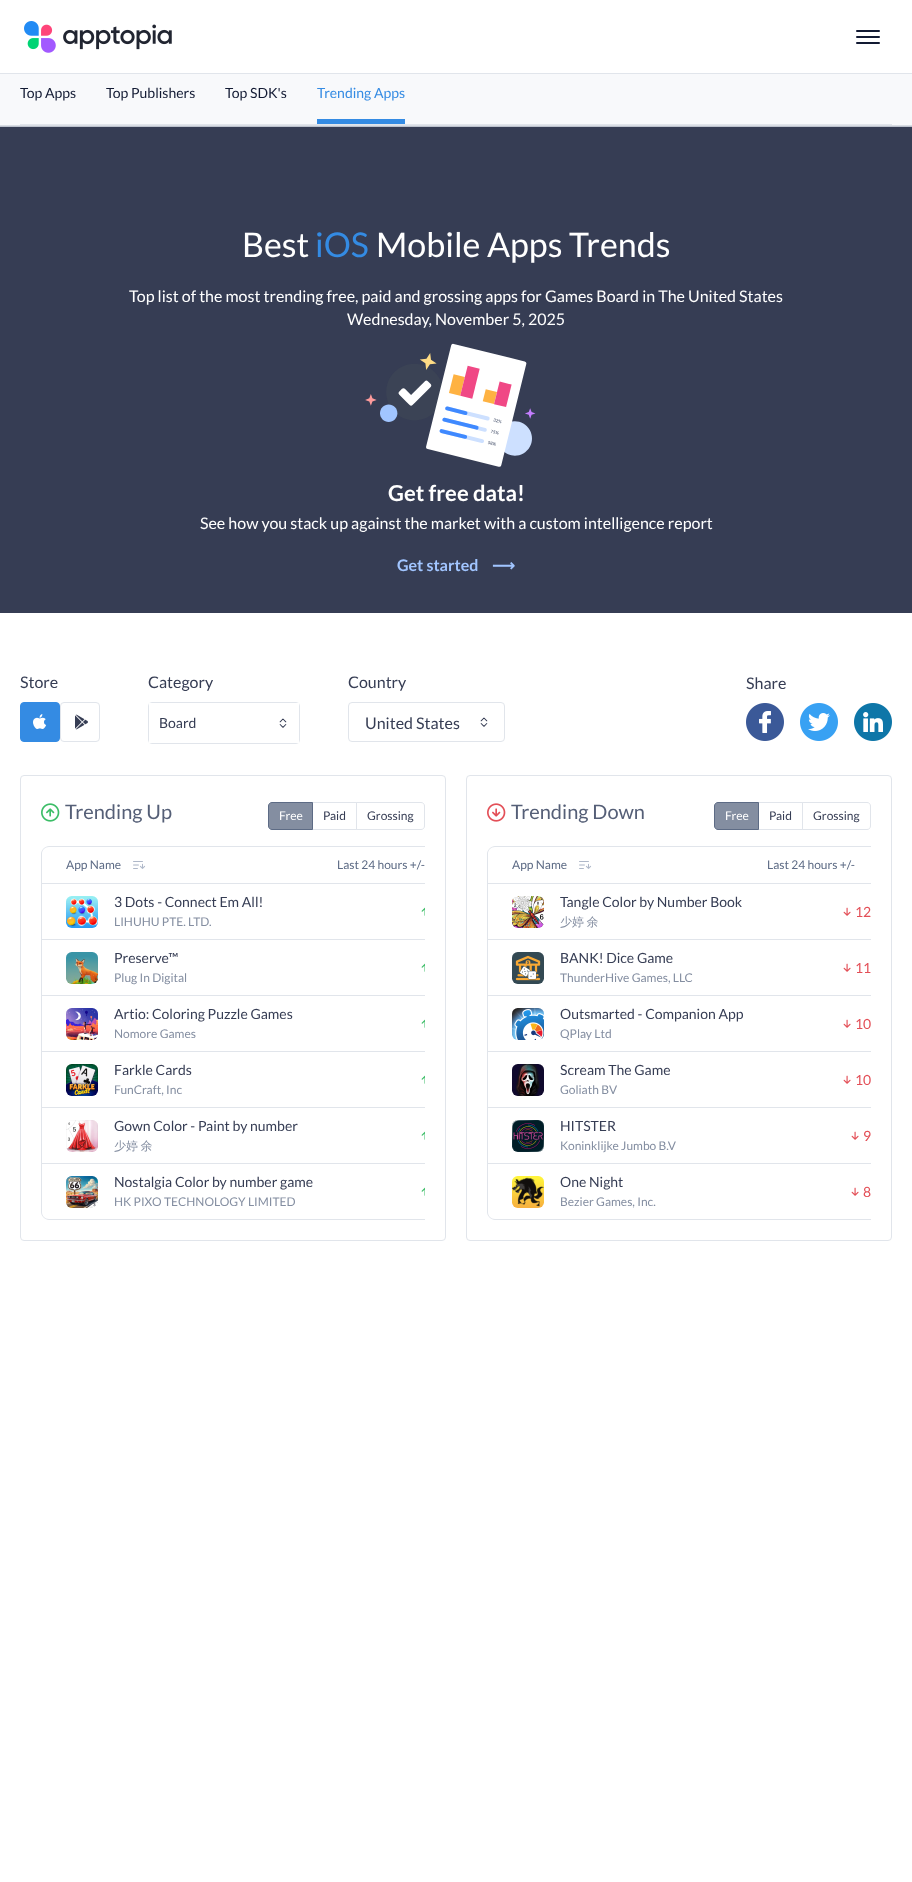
<?xml version="1.0" encoding="UTF-8"?>
<svg xmlns="http://www.w3.org/2000/svg" xmlns:xlink="http://www.w3.org/1999/xlink" width="912" height="1882">
  <defs>
    <linearGradient id="g1" gradientUnits="userSpaceOnUse" x1="456" y1="125" x2="456" y2="146"><stop offset="0.01" stop-color="#212531" stop-opacity="0.04" /><stop offset="1" stop-color="#212531" stop-opacity="0" /></linearGradient>
  </defs>
  <rect width="100%" height="100%" fill="#ffffff" />
  <rect y="73" width="912" height="1" fill="#e1e5eb" />
  <image x="24" y="21" width="148" height="32" xlink:href="image1.png" />
  <rect x="856" y="30" width="24" height="2" rx="1" fill="#121a33" />
  <rect x="856" y="36" width="24" height="2" rx="1" fill="#121a33" />
  <rect x="856" y="42" width="24" height="2" rx="1" fill="#121a33" />
  <rect y="74" width="912" height="51" fill="#f8f9fb" />
  <rect y="125" width="912" height="1" fill="#e1e5eb" />
  <rect x="20" y="124" width="872" height="1" fill="#e1e5eb" />
  <rect x="317" y="119" width="88" height="5" fill="#348be3" />
  <rect y="126" width="912" height="1" fill="#c2c8d3" />
  <rect y="125" width="912" height="2" fill="url(#g1)" />
  <rect y="127" width="912" height="486" fill="#363d54" />
  <image x="365" y="343" width="171" height="124" xlink:href="image2.png" />
  <rect x="20.5" y="702.5" width="39" height="39" rx="3.5" fill="#348be3" stroke="#348be3" />
  <image x="33" y="714" width="14" height="15" xlink:href="image3.png" />
  <rect x="60.5" y="702.5" width="39" height="39" rx="3.5" fill="none" stroke="#e1e5eb" />
  <image x="75" y="714" width="13" height="16" xlink:href="image4.png" />
  <rect x="148.5" y="702.5" width="151" height="41" rx="3.5" fill="none" stroke="#e1e5eb" />
  <rect x="149" y="703" width="150" height="40" fill="#ffffff" />
  <rect x="348.5" y="702.5" width="156" height="39" rx="3.5" fill="none" stroke="#e1e5eb" />
  <image x="746" y="703" width="38" height="38" xlink:href="image5.png" />
  <image x="800" y="703" width="38" height="38" xlink:href="image6.png" />
  <image x="854" y="703" width="38" height="38" xlink:href="image7.png" />
  <rect x="20.5" y="775.5" width="425" height="465" rx="3.5" fill="none" stroke="#e1e5eb" />
  <image x="41" y="803" width="19" height="19" xlink:href="image8.png" />
  <rect x="312.5" y="802.5" width="44" height="27" fill="none" stroke="#e1e5eb" />
  <path d="M 272 802.5 h 40.5 v 27 h -40.5 c -2 0 -3.5 -1.5 -3.5 -3.5 v -20 c 0 -2 1.5 -3.5 3.5 -3.5 z" fill="#848ea1" stroke="#5d6b85" />
  <path d="M 356.5 802.5 h 64.5 c 2 0 3.5 1.5 3.5 3.5 v 20 c 0 2 -1.5 3.5 -3.5 3.5 h -64.5 z" fill="#ffffff" stroke="#e1e5eb" />
  <path d="M 49 846 h 276 v 38 h -284 v -30 c 0 -4 4 -8 8 -8 z m 0 1 h 276 v 36 h -283 v -29 c 0 -4 3 -7 7 -7 z" fill="#e1e5eb" fill-rule="evenodd" />
  <rect x="325" y="846" width="100" height="1" fill="#e1e5eb" />
  <rect x="325" y="883" width="100" height="1" fill="#e1e5eb" />
  <rect x="41" y="939" width="384" height="1" fill="#e1e5eb" />
  <rect x="41" y="884" width="1" height="56" fill="#e1e5eb" />
  <image x="66" y="896" width="32" height="32" xlink:href="image9.png" />
  <image x="421" y="907" width="4" height="9" xlink:href="image10.png" />
  <rect x="41" y="995" width="384" height="1" fill="#e1e5eb" />
  <rect x="41" y="940" width="1" height="56" fill="#e1e5eb" />
  <image x="66" y="952" width="32" height="32" xlink:href="image11.png" />
  <image x="421" y="963" width="4" height="9" xlink:href="image10.png" />
  <rect x="41" y="1051" width="384" height="1" fill="#e1e5eb" />
  <rect x="41" y="996" width="1" height="56" fill="#e1e5eb" />
  <image x="66" y="1008" width="32" height="32" xlink:href="image12.png" />
  <image x="421" y="1019" width="4" height="9" xlink:href="image10.png" />
  <rect x="41" y="1107" width="384" height="1" fill="#e1e5eb" />
  <rect x="41" y="1052" width="1" height="56" fill="#e1e5eb" />
  <image x="66" y="1064" width="32" height="32" xlink:href="image13.png" />
  <image x="421" y="1075" width="4" height="9" xlink:href="image10.png" />
  <rect x="41" y="1163" width="384" height="1" fill="#e1e5eb" />
  <rect x="41" y="1108" width="1" height="56" fill="#e1e5eb" />
  <image x="66" y="1120" width="32" height="32" xlink:href="image14.png" />
  <image x="421" y="1131" width="4" height="9" xlink:href="image10.png" />
  <path d="M 41 1164 h 284 v 56 h -276 c -4 0 -8 -4 -8 -8 z m 1 0 h 283 v 55 h -276 c -4 0 -7 -3 -7 -7 z" fill="#e1e5eb" fill-rule="evenodd" />
  <image x="66" y="1176" width="32" height="32" xlink:href="image15.png" />
  <rect x="325" y="1219" width="100" height="1" fill="#e1e5eb" />
  <image x="421" y="1187" width="4" height="9" xlink:href="image10.png" />
  <rect x="466.5" y="775.5" width="425" height="465" rx="3.5" fill="none" stroke="#e1e5eb" />
  <image x="487" y="803" width="19" height="19" xlink:href="image16.png" />
  <rect x="758.5" y="802.5" width="44" height="27" fill="none" stroke="#e1e5eb" />
  <path d="M 718 802.5 h 40.5 v 27 h -40.5 c -2 0 -3.5 -1.5 -3.5 -3.5 v -20 c 0 -2 1.5 -3.5 3.5 -3.5 z" fill="#848ea1" stroke="#5d6b85" />
  <path d="M 802.5 802.5 h 64.5 c 2 0 3.5 1.5 3.5 3.5 v 20 c 0 2 -1.5 3.5 -3.5 3.5 h -64.5 z" fill="#ffffff" stroke="#e1e5eb" />
  <path d="M 495 846 h 260 v 38 h -268 v -30 c 0 -4 4 -8 8 -8 z m 0 1 h 260 v 36 h -267 v -29 c 0 -4 3 -7 7 -7 z" fill="#e1e5eb" fill-rule="evenodd" />
  <rect x="755" y="846" width="116" height="1" fill="#e1e5eb" />
  <rect x="755" y="883" width="116" height="1" fill="#e1e5eb" />
  <rect x="487" y="939" width="384" height="1" fill="#e1e5eb" />
  <rect x="487" y="884" width="1" height="56" fill="#e1e5eb" />
  <image x="512" y="896" width="32" height="32" xlink:href="image17.png" />
  <image x="843" y="907" width="8" height="9" xlink:href="image18.png" />
  <rect x="487" y="995" width="384" height="1" fill="#e1e5eb" />
  <rect x="487" y="940" width="1" height="56" fill="#e1e5eb" />
  <image x="512" y="952" width="32" height="32" xlink:href="image19.png" />
  <image x="843" y="963" width="8" height="9" xlink:href="image18.png" />
  <rect x="487" y="1051" width="384" height="1" fill="#e1e5eb" />
  <rect x="487" y="996" width="1" height="56" fill="#e1e5eb" />
  <image x="512" y="1008" width="32" height="32" xlink:href="image20.png" />
  <image x="843" y="1019" width="8" height="9" xlink:href="image18.png" />
  <rect x="487" y="1107" width="384" height="1" fill="#e1e5eb" />
  <rect x="487" y="1052" width="1" height="56" fill="#e1e5eb" />
  <image x="512" y="1064" width="32" height="32" xlink:href="image21.png" />
  <image x="843" y="1075" width="8" height="9" xlink:href="image18.png" />
  <rect x="487" y="1163" width="384" height="1" fill="#e1e5eb" />
  <rect x="487" y="1108" width="1" height="56" fill="#e1e5eb" />
  <image x="512" y="1120" width="32" height="32" xlink:href="image22.png" />
  <image x="851" y="1131" width="8" height="9" xlink:href="image18.png" />
  <path d="M 487 1164 h 268 v 56 h -260 c -4 0 -8 -4 -8 -8 z m 1 0 h 267 v 55 h -260 c -4 0 -7 -3 -7 -7 z" fill="#e1e5eb" fill-rule="evenodd" />
  <image x="512" y="1176" width="32" height="32" xlink:href="image23.png" />
  <rect x="755" y="1219" width="116" height="1" fill="#e1e5eb" />
  <image x="851" y="1187" width="8" height="9" xlink:href="image18.png" />
  <text x="20" y="98" style="font-family: Lato; font-size: 14px; fill: #121a33">Top Apps</text>
  <text x="106" y="98" style="font-family: Lato; font-size: 14px; fill: #121a33">Top Publishers</text>
  <text x="225" y="98" style="font-family: Lato; font-size: 14px; fill: #121a33">Top SDK's</text>
  <text x="317" y="98" style="font-family: Lato; font-size: 14px; fill: #348be3">Trending Apps</text>
  <text x="242" y="257" style="font-family: Lato; font-size: 34px; fill: #ffffff">Best</text>
  <text x="315" y="257" style="font-family: Lato; font-size: 34px; fill: #348be3">iOS</text>
  <text x="376" y="257" style="font-family: Lato; font-size: 34px; fill: #ffffff">Mobile Apps Trends</text>
  <text x="129" y="302" style="font-family: Lato; font-size: 16px; fill: #ffffff">Top list of the most trending free, paid and grossing apps for Games Board in The United States</text>
  <text x="347" y="325" style="font-family: Lato; font-size: 16px; fill: #ffffff">Wednesday, November 5, 2025</text>
  <text x="388" y="501" style="font-family: Lato; font-size: 22px; font-weight: bold; fill: #ffffff">Get free data!</text>
  <text x="200" y="529" style="font-family: Lato; font-size: 16px; fill: #ffffff">See how you stack up against the market with a custom intelligence report</text>
  <text x="397" y="571" style="font-family: Lato; font-size: 16px; font-weight: bold; fill: #a1c5ff">Get started</text>
  <text x="492" y="571" style="font-family: DejaVu Sans; font-size: 16px; font-weight: bold; fill: #a1c5ff">⟶</text>
  <text x="20" y="688" style="font-family: Lato; font-size: 16px; fill: #363d54">Store</text>
  <text x="148" y="688" style="font-family: Lato; font-size: 16px; fill: #363d54">Category</text>
  <text x="159" y="728" style="font-family: Lato; font-size: 14px; fill: #363d54">Board</text>
  <text x="275" y="730" style="font-family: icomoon; font-size: 16px; fill: #363d54">󡄕</text>
  <text x="348" y="688" style="font-family: Lato; font-size: 16px; fill: #363d54">Country</text>
  <text x="365" y="729" style="font-family: Lato; font-size: 16px; fill: #363d54">United States</text>
  <text x="476" y="729" style="font-family: icomoon; font-size: 16px; fill: #363d54">󡄕</text>
  <text x="746" y="689" style="font-family: Lato; font-size: 16px; fill: #363d54">Share</text>
  <text x="65" y="819" style="font-family: Lato; font-size: 20px; fill: #555f77">Trending Up</text>
  <text x="279" y="820" style="font-family: Lato; font-size: 12px; fill: #ffffff">Free</text>
  <text x="323" y="820" style="font-family: Lato; font-size: 12px; fill: #363d54">Paid</text>
  <text x="367" y="820" style="font-family: Lato; font-size: 12px; fill: #363d54">Grossing</text>
  <text x="66" y="869" style="font-family: Lato; font-size: 12px; fill: #5d6b85">App Name</text>
  <text x="133" y="872" style="font-family: icomoon; font-size: 16px; fill: #afb8c9">󡅡</text>
  <text x="337" y="869" style="font-family: Lato; font-size: 12px; fill: #5d6b85">Last 24 hours +/-</text>
  <text x="114" y="907" style="font-family: Lato; font-size: 14px; fill: #363d54">3 Dots - Connect Em All!</text>
  <text x="114" y="926" style="font-family: Lato; font-size: 12px; fill: #848ea1">LIHUHU PTE. LTD.</text>
  <text x="114" y="963" style="font-family: Lato; font-size: 14px; fill: #363d54">Preserve™</text>
  <text x="114" y="982" style="font-family: Lato; font-size: 12px; fill: #848ea1">Plug In Digital</text>
  <text x="114" y="1019" style="font-family: Lato; font-size: 14px; fill: #363d54">Artio: Coloring Puzzle Games</text>
  <text x="114" y="1038" style="font-family: Lato; font-size: 12px; fill: #848ea1">Nomore Games</text>
  <text x="114" y="1075" style="font-family: Lato; font-size: 14px; fill: #363d54">Farkle Cards</text>
  <text x="114" y="1094" style="font-family: Lato; font-size: 12px; fill: #848ea1">FunCraft, Inc</text>
  <text x="114" y="1131" style="font-family: Lato; font-size: 14px; fill: #363d54">Gown Color - Paint by number</text>
  <text x="114" y="1150" word-spacing="-1" style="font-family: WenQuanYi Zen Hei; font-size: 12px; font-weight: 500; fill: #848ea1">少婷 余</text>
  <text x="114" y="1187" style="font-family: Lato; font-size: 14px; fill: #363d54">Nostalgia Color by number game</text>
  <text x="114" y="1206" style="font-family: Lato; font-size: 12px; fill: #848ea1">HK PIXO TECHNOLOGY LIMITED</text>
  <text x="511" y="819" style="font-family: Lato; font-size: 20px; fill: #555f77">Trending Down</text>
  <text x="725" y="820" style="font-family: Lato; font-size: 12px; fill: #ffffff">Free</text>
  <text x="769" y="820" style="font-family: Lato; font-size: 12px; fill: #363d54">Paid</text>
  <text x="813" y="820" style="font-family: Lato; font-size: 12px; fill: #363d54">Grossing</text>
  <text x="512" y="869" style="font-family: Lato; font-size: 12px; fill: #5d6b85">App Name</text>
  <text x="579" y="872" style="font-family: icomoon; font-size: 16px; fill: #afb8c9">󡅡</text>
  <text x="767" y="869" style="font-family: Lato; font-size: 12px; fill: #5d6b85">Last 24 hours +/-</text>
  <text x="560" y="907" style="font-family: Lato; font-size: 14px; fill: #363d54">Tangle Color by Number Book</text>
  <text x="560" y="926" word-spacing="-1" style="font-family: WenQuanYi Zen Hei; font-size: 12px; font-weight: 500; fill: #848ea1">少婷 余</text>
  <text x="855" y="917" style="font-family: Lato; font-size: 14px; fill: #e34f57">12</text>
  <text x="560" y="963" style="font-family: Lato; font-size: 14px; fill: #363d54">BANK! Dice Game</text>
  <text x="560" y="982" style="font-family: Lato; font-size: 12px; fill: #848ea1">ThunderHive Games, LLC</text>
  <text x="855" y="973" style="font-family: Lato; font-size: 14px; fill: #e34f57">11</text>
  <text x="560" y="1019" style="font-family: Lato; font-size: 14px; fill: #363d54">Outsmarted - Companion App</text>
  <text x="560" y="1038" style="font-family: Lato; font-size: 12px; fill: #848ea1">QPlay Ltd</text>
  <text x="855" y="1029" style="font-family: Lato; font-size: 14px; fill: #e34f57">10</text>
  <text x="560" y="1075" style="font-family: Lato; font-size: 14px; fill: #363d54">Scream The Game</text>
  <text x="560" y="1094" style="font-family: Lato; font-size: 12px; fill: #848ea1">Goliath BV</text>
  <text x="855" y="1085" style="font-family: Lato; font-size: 14px; fill: #e34f57">10</text>
  <text x="560" y="1131" style="font-family: Lato; font-size: 14px; fill: #363d54">HITSTER</text>
  <text x="560" y="1150" style="font-family: Lato; font-size: 12px; fill: #848ea1">Koninklijke Jumbo B.V</text>
  <text x="863" y="1141" style="font-family: Lato; font-size: 14px; fill: #e34f57">9</text>
  <text x="560" y="1187" style="font-family: Lato; font-size: 14px; fill: #363d54">One Night</text>
  <text x="560" y="1206" style="font-family: Lato; font-size: 12px; fill: #848ea1">Bezier Games, Inc.</text>
  <text x="863" y="1197" style="font-family: Lato; font-size: 14px; fill: #e34f57">8</text>
</svg>
